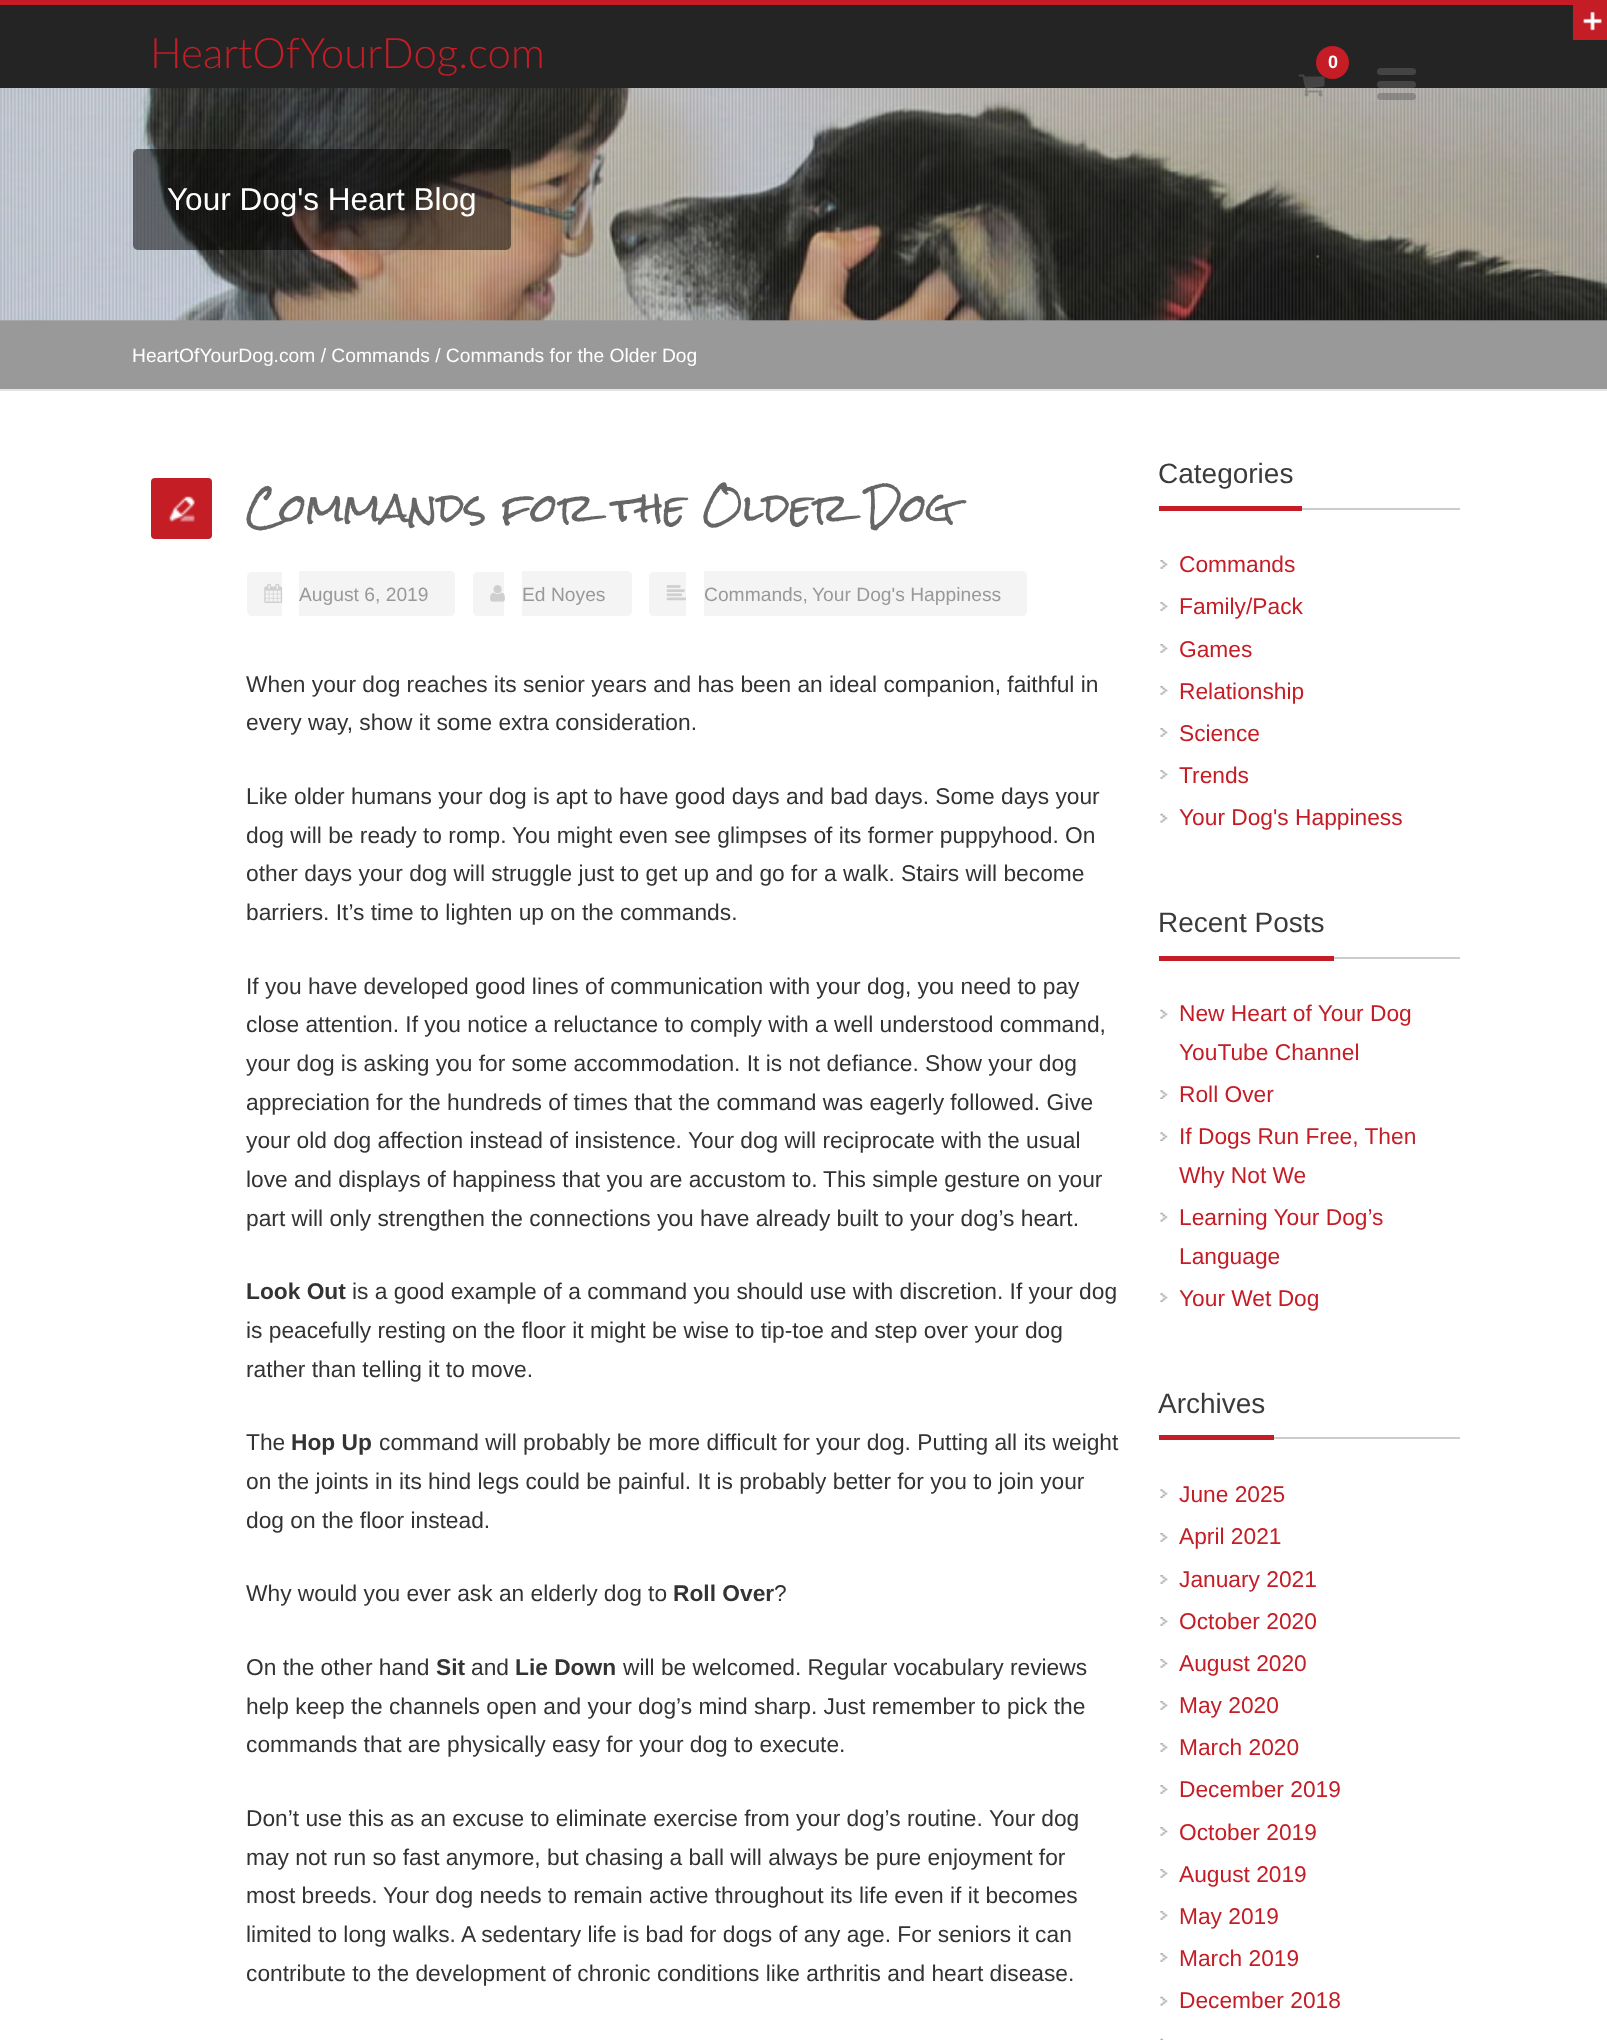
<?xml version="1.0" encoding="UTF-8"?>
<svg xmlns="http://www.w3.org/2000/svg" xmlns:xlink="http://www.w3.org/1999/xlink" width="1607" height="2040">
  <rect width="100%" height="100%" fill="#ffffff" />
  <rect width="1607" height="5" fill="#c41d26" />
  <rect y="5" width="1607" height="83" fill="#242424" />
  <rect x="1573" y="5" width="34" height="35" fill="#c41d26" />
  <image x="1583" y="11" width="19" height="20" xlink:href="image1.png" />
  <rect y="320" width="1607" height="69" fill="#999999" />
  <image x="0" y="88" width="1607" height="233" xlink:href="image3.png" />
  <image x="0" y="88" width="1607" height="233" xlink:href="image4.png" />
  <image x="1298" y="74" width="27" height="23" xlink:href="image2.png" />
  <circle cx="1332.5" cy="62.5" r="16.5" fill="#c41d26" />
  <rect x="1377" y="68" width="39" height="7" rx="3.5" fill="#444444" />
  <rect x="1377" y="81" width="39" height="7" rx="3.5" fill="#444444" />
  <rect x="1377" y="93" width="39" height="7" rx="3.5" fill="#646464" fill-opacity="0.5" />
  <rect x="133" y="149" width="378" height="101" rx="5" fill="#000000" fill-opacity="0.5" />
  <rect y="389" width="1607" height="2" fill="#e4e4e4" />
  <rect x="151" y="478" width="61" height="61" rx="4" fill="#c41d26" />
  <image x="169" y="496" width="26" height="26" xlink:href="image5.png" />
  <path d="M 252 572 h 30 v 44 h -30 c -3 0 -5 -2 -5 -5 v -34 c 0 -3 2 -5 5 -5 z" fill="#f4f4f4" />
  <path d="M 299 571 h 151 c 3 0 5 2 5 5 v 35 c 0 3 -2 5 -5 5 h -151 z" fill="#f4f4f4" />
  <image x="264" y="583" width="19" height="20" xlink:href="image6.png" />
  <path d="M 478 572 h 26 v 44 h -26 c -3 0 -5 -2 -5 -5 v -34 c 0 -3 2 -5 5 -5 z" fill="#f4f4f4" />
  <path d="M 522 571 h 105 c 3 0 5 2 5 5 v 35 c 0 3 -2 5 -5 5 h -105 z" fill="#f4f4f4" />
  <image x="490" y="585" width="16" height="17" xlink:href="image7.png" />
  <path d="M 654 572 h 32 v 44 h -32 c -3 0 -5 -2 -5 -5 v -34 c 0 -3 2 -5 5 -5 z" fill="#f4f4f4" />
  <rect x="704" y="571" width="108" height="45" fill="#f4f4f4" />
  <path d="M 812 571 h 210 c 3 0 5 2 5 5 v 35 c 0 3 -2 5 -5 5 h -210 z" fill="#f4f4f4" />
  <image x="666" y="585" width="20" height="16" xlink:href="image8.png" />
  <rect x="1302" y="508" width="158" height="2" fill="#cccccc" />
  <rect x="1159" y="506" width="143" height="5" fill="#c41d26" />
  <image x="1160" y="560" width="8" height="9" xlink:href="image9.png" />
  <image x="1160" y="602" width="8" height="9" xlink:href="image9.png" />
  <image x="1160" y="644" width="8" height="9" xlink:href="image9.png" />
  <image x="1160" y="686" width="8" height="9" xlink:href="image9.png" />
  <image x="1160" y="728" width="8" height="9" xlink:href="image9.png" />
  <image x="1160" y="770" width="8" height="9" xlink:href="image9.png" />
  <image x="1160" y="813" width="8" height="10" xlink:href="image10.png" />
  <rect x="1334" y="957" width="126" height="2" fill="#cccccc" />
  <rect x="1159" y="956" width="175" height="5" fill="#c41d26" />
  <image x="1160" y="1009" width="8" height="10" xlink:href="image10.png" />
  <image x="1160" y="1090" width="8" height="9" xlink:href="image11.png" />
  <image x="1160" y="1132" width="8" height="9" xlink:href="image11.png" />
  <image x="1160" y="1212" width="8" height="10" xlink:href="image10.png" />
  <image x="1160" y="1293" width="8" height="9" xlink:href="image11.png" />
  <rect x="1274" y="1437" width="186" height="2" fill="#cccccc" />
  <rect x="1159" y="1435" width="115" height="5" fill="#c41d26" />
  <image x="1160" y="1489" width="8" height="9" xlink:href="image11.png" />
  <image x="1160" y="1533" width="8" height="9" xlink:href="image9.png" />
  <image x="1160" y="1575" width="8" height="9" xlink:href="image9.png" />
  <image x="1160" y="1617" width="8" height="9" xlink:href="image9.png" />
  <image x="1160" y="1659" width="8" height="9" xlink:href="image9.png" />
  <image x="1160" y="1701" width="8" height="9" xlink:href="image9.png" />
  <image x="1160" y="1743" width="8" height="9" xlink:href="image9.png" />
  <image x="1160" y="1785" width="8" height="9" xlink:href="image9.png" />
  <image x="1160" y="1827" width="8" height="9" xlink:href="image9.png" />
  <image x="1160" y="1869" width="8" height="9" xlink:href="image9.png" />
  <image x="1160" y="1911" width="8" height="9" xlink:href="image9.png" />
  <image x="1160" y="1953" width="8" height="9" xlink:href="image9.png" />
  <image x="1160" y="1996" width="8" height="10" xlink:href="image10.png" />
  <image x="1160" y="2038" width="4" height="2" xlink:href="image12.png" />
  <text x="150" y="68" style="font-family: Lato; font-size: 42px; font-weight: 300; fill: #c41d26">HeartOfYourDog.com</text>
  <text x="1328" y="68" style="font-family: Liberation Sans; font-size: 18px; font-weight: bold; fill: #ffffff">0</text>
  <text x="167" y="210" style="font-family: Liberation Sans; font-size: 31.5px; fill: #ffffff">Your Dog's Heart Blog</text>
  <text x="132" y="362" style="font-family: Liberation Sans; font-size: 19.25px; fill: #ffffff">HeartOfYourDog.com / Commands / Commands for the Older Dog</text>
  <text x="246" y="523" style="font-family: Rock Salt; font-size: 38.5px; fill: #666666">Commands for the Older Dog</text>
  <text x="299" y="601" style="font-family: Liberation Sans; font-size: 19.25px; fill: #999999">August 6, 2019</text>
  <text x="522" y="601" style="font-family: Liberation Sans; font-size: 19.25px; fill: #999999">Ed Noyes</text>
  <text x="704" y="601" style="font-family: Liberation Sans; font-size: 19.25px; fill: #999999">Commands,</text>
  <text x="812" y="601" style="font-family: Liberation Sans; font-size: 19.25px; fill: #999999">Your Dog's Happiness</text>
  <text x="246" y="692" style="font-family: Liberation Sans; font-size: 22.75px; fill: #333333">When your dog reaches its senior years and has been an ideal companion, faithful in</text>
  <text x="246" y="730" style="font-family: Liberation Sans; font-size: 22.75px; fill: #333333">every way, show it some extra consideration.</text>
  <text x="246" y="804" style="font-family: Liberation Sans; font-size: 22.75px; fill: #333333">Like older humans your dog is apt to have good days and bad days. Some days your</text>
  <text x="246" y="843" style="font-family: Liberation Sans; font-size: 22.75px; fill: #333333">dog will be ready to romp.</text>
  <text x="512" y="843" style="font-family: Liberation Sans; font-size: 22.75px; fill: #333333">You might even see glimpses of its former puppyhood. On</text>
  <text x="246" y="881" style="font-family: Liberation Sans; font-size: 22.75px; fill: #333333">other days your dog will struggle just to get up and go for a walk. Stairs will become</text>
  <text x="246" y="920" style="font-family: Liberation Sans; font-size: 22.75px; fill: #333333">barriers. It’s time to lighten up on the commands.</text>
  <text x="246" y="994" style="font-family: Liberation Sans; font-size: 22.75px; fill: #333333">If you have developed good lines of communication with your dog, you need to pay</text>
  <text x="246" y="1032" style="font-family: Liberation Sans; font-size: 22.75px; fill: #333333">close attention. If you notice a reluctance to comply with a well understood command,</text>
  <text x="246" y="1071" style="font-family: Liberation Sans; font-size: 22.75px; fill: #333333">your dog is asking you for some accommodation. It is not defiance. Show your dog</text>
  <text x="246" y="1110" style="font-family: Liberation Sans; font-size: 22.75px; fill: #333333">appreciation for the hundreds of times that the command was eagerly followed. Give</text>
  <text x="246" y="1148" style="font-family: Liberation Sans; font-size: 22.75px; fill: #333333">your old dog affection instead of insistence.</text>
  <text x="688" y="1148" style="font-family: Liberation Sans; font-size: 22.75px; fill: #333333">Your dog will reciprocate with the usual</text>
  <text x="246" y="1187" style="font-family: Liberation Sans; font-size: 22.75px; fill: #333333">love and displays of happiness that you are accustom to.</text>
  <text x="823" y="1187" style="font-family: Liberation Sans; font-size: 22.75px; fill: #333333">This simple gesture on your</text>
  <text x="246" y="1226" style="font-family: Liberation Sans; font-size: 22.75px; fill: #333333">part will only strengthen the connections you have already built to your dog’s heart.</text>
  <text x="246" y="1299" style="font-family: Liberation Sans; font-size: 22.75px; font-weight: bold; fill: #333333">Look Out</text>
  <text x="352" y="1299" style="font-family: Liberation Sans; font-size: 22.75px; fill: #333333">is a good example of a command you should use with discretion. If your dog</text>
  <text x="246" y="1338" style="font-family: Liberation Sans; font-size: 22.75px; fill: #333333">is peacefully resting on the floor it might be wise to tip-toe and step over your dog</text>
  <text x="246" y="1377" style="font-family: Liberation Sans; font-size: 22.75px; fill: #333333">rather than telling it to move.</text>
  <text x="246" y="1450" style="font-family: Liberation Sans; font-size: 22.75px; fill: #333333">The</text>
  <text x="291" y="1450" style="font-family: Liberation Sans; font-size: 22.75px; font-weight: bold; fill: #333333">Hop Up</text>
  <text x="379" y="1450" style="font-family: Liberation Sans; font-size: 22.75px; fill: #333333">command will probably be more difficult for your dog. Putting all its weight</text>
  <text x="246" y="1489" style="font-family: Liberation Sans; font-size: 22.75px; fill: #333333">on the joints in its hind legs could be painful. It is probably better for you to join your</text>
  <text x="246" y="1528" style="font-family: Liberation Sans; font-size: 22.75px; fill: #333333">dog on the floor instead.</text>
  <text x="246" y="1601" style="font-family: Liberation Sans; font-size: 22.75px; fill: #333333">Why would you ever ask an elderly dog to</text>
  <text x="673" y="1601" style="font-family: Liberation Sans; font-size: 22.75px; font-weight: bold; fill: #333333">Roll Over</text>
  <text x="774" y="1601" style="font-family: Liberation Sans; font-size: 22.75px; fill: #333333">?</text>
  <text x="246" y="1675" style="font-family: Liberation Sans; font-size: 22.75px; fill: #333333">On the other hand</text>
  <text x="436" y="1675" style="font-family: Liberation Sans; font-size: 22.75px; font-weight: bold; fill: #333333">Sit</text>
  <text x="471" y="1675" style="font-family: Liberation Sans; font-size: 22.75px; fill: #333333">and</text>
  <text x="515" y="1675" style="font-family: Liberation Sans; font-size: 22.75px; font-weight: bold; fill: #333333">Lie Down</text>
  <text x="623" y="1675" style="font-family: Liberation Sans; font-size: 22.75px; fill: #333333">will be welcomed. Regular vocabulary reviews</text>
  <text x="246" y="1714" style="font-family: Liberation Sans; font-size: 22.75px; fill: #333333">help keep the channels open and your dog’s mind sharp. Just remember to pick the</text>
  <text x="246" y="1752" style="font-family: Liberation Sans; font-size: 22.75px; fill: #333333">commands that are physically easy for your dog to execute.</text>
  <text x="246" y="1826" style="font-family: Liberation Sans; font-size: 22.75px; fill: #333333">Don’t use this as an excuse to eliminate exercise from your dog’s routine.</text>
  <text x="989" y="1826" style="font-family: Liberation Sans; font-size: 22.75px; fill: #333333">Your dog</text>
  <text x="246" y="1865" style="font-family: Liberation Sans; font-size: 22.75px; fill: #333333">may not run so fast anymore, but chasing a ball will always be pure enjoyment for</text>
  <text x="246" y="1903" style="font-family: Liberation Sans; font-size: 22.75px; fill: #333333">most breeds.</text>
  <text x="383" y="1903" style="font-family: Liberation Sans; font-size: 22.75px; fill: #333333">Your dog needs to remain active throughout its life even if it becomes</text>
  <text x="246" y="1942" style="font-family: Liberation Sans; font-size: 22.75px; fill: #333333">limited to long walks.</text>
  <text x="461" y="1942" style="font-family: Liberation Sans; font-size: 22.75px; fill: #333333">A sedentary life is bad for dogs of any age. For seniors it can</text>
  <text x="246" y="1981" style="font-family: Liberation Sans; font-size: 22.75px; fill: #333333">contribute to the development of chronic conditions like arthritis and heart disease.</text>
  <text x="1158" y="483" style="font-family: Liberation Sans; font-size: 28px; fill: #3b3b3b">Categories</text>
  <text x="1179" y="572" style="font-family: Liberation Sans; font-size: 22.75px; fill: #c41d26">Commands</text>
  <text x="1179" y="614" style="font-family: Liberation Sans; font-size: 22.75px; fill: #c41d26">Family/Pack</text>
  <text x="1179" y="657" style="font-family: Liberation Sans; font-size: 22.75px; fill: #c41d26">Games</text>
  <text x="1179" y="699" style="font-family: Liberation Sans; font-size: 22.75px; fill: #c41d26">Relationship</text>
  <text x="1179" y="741" style="font-family: Liberation Sans; font-size: 22.75px; fill: #c41d26">Science</text>
  <text x="1179" y="783" style="font-family: Liberation Sans; font-size: 22.75px; fill: #c41d26">Trends</text>
  <text x="1179" y="825" style="font-family: Liberation Sans; font-size: 22.75px; fill: #c41d26">Your Dog's Happiness</text>
  <text x="1158" y="932" style="font-family: Liberation Sans; font-size: 28px; fill: #3b3b3b">Recent Posts</text>
  <text x="1179" y="1021" style="font-family: Liberation Sans; font-size: 22.75px; fill: #c41d26">New Heart of Your Dog</text>
  <text x="1179" y="1060" style="font-family: Liberation Sans; font-size: 22.75px; fill: #c41d26">YouTube Channel</text>
  <text x="1179" y="1102" style="font-family: Liberation Sans; font-size: 22.75px; fill: #c41d26">Roll Over</text>
  <text x="1179" y="1144" style="font-family: Liberation Sans; font-size: 22.75px; fill: #c41d26">If Dogs Run Free, Then</text>
  <text x="1179" y="1183" style="font-family: Liberation Sans; font-size: 22.75px; fill: #c41d26">Why Not We</text>
  <text x="1179" y="1225" style="font-family: Liberation Sans; font-size: 22.75px; fill: #c41d26">Learning Your Dog’s</text>
  <text x="1179" y="1264" style="font-family: Liberation Sans; font-size: 22.75px; fill: #c41d26">Language</text>
  <text x="1179" y="1306" style="font-family: Liberation Sans; font-size: 22.75px; fill: #c41d26">Your Wet Dog</text>
  <text x="1158" y="1413" style="font-family: Liberation Sans; font-size: 28px; fill: #3b3b3b">Archives</text>
  <text x="1179" y="1502" style="font-family: Liberation Sans; font-size: 22.75px; fill: #c41d26">June 2025</text>
  <text x="1179" y="1544" style="font-family: Liberation Sans; font-size: 22.75px; fill: #c41d26">April 2021</text>
  <text x="1179" y="1587" style="font-family: Liberation Sans; font-size: 22.75px; fill: #c41d26">January 2021</text>
  <text x="1179" y="1629" style="font-family: Liberation Sans; font-size: 22.75px; fill: #c41d26">October 2020</text>
  <text x="1179" y="1671" style="font-family: Liberation Sans; font-size: 22.75px; fill: #c41d26">August 2020</text>
  <text x="1179" y="1713" style="font-family: Liberation Sans; font-size: 22.75px; fill: #c41d26">May 2020</text>
  <text x="1179" y="1755" style="font-family: Liberation Sans; font-size: 22.75px; fill: #c41d26">March 2020</text>
  <text x="1179" y="1797" style="font-family: Liberation Sans; font-size: 22.75px; fill: #c41d26">December 2019</text>
  <text x="1179" y="1840" style="font-family: Liberation Sans; font-size: 22.75px; fill: #c41d26">October 2019</text>
  <text x="1179" y="1882" style="font-family: Liberation Sans; font-size: 22.75px; fill: #c41d26">August 2019</text>
  <text x="1179" y="1924" style="font-family: Liberation Sans; font-size: 22.75px; fill: #c41d26">May 2019</text>
  <text x="1179" y="1966" style="font-family: Liberation Sans; font-size: 22.75px; fill: #c41d26">March 2019</text>
  <text x="1179" y="2008" style="font-family: Liberation Sans; font-size: 22.75px; fill: #c41d26">December 2018</text>
</svg>
